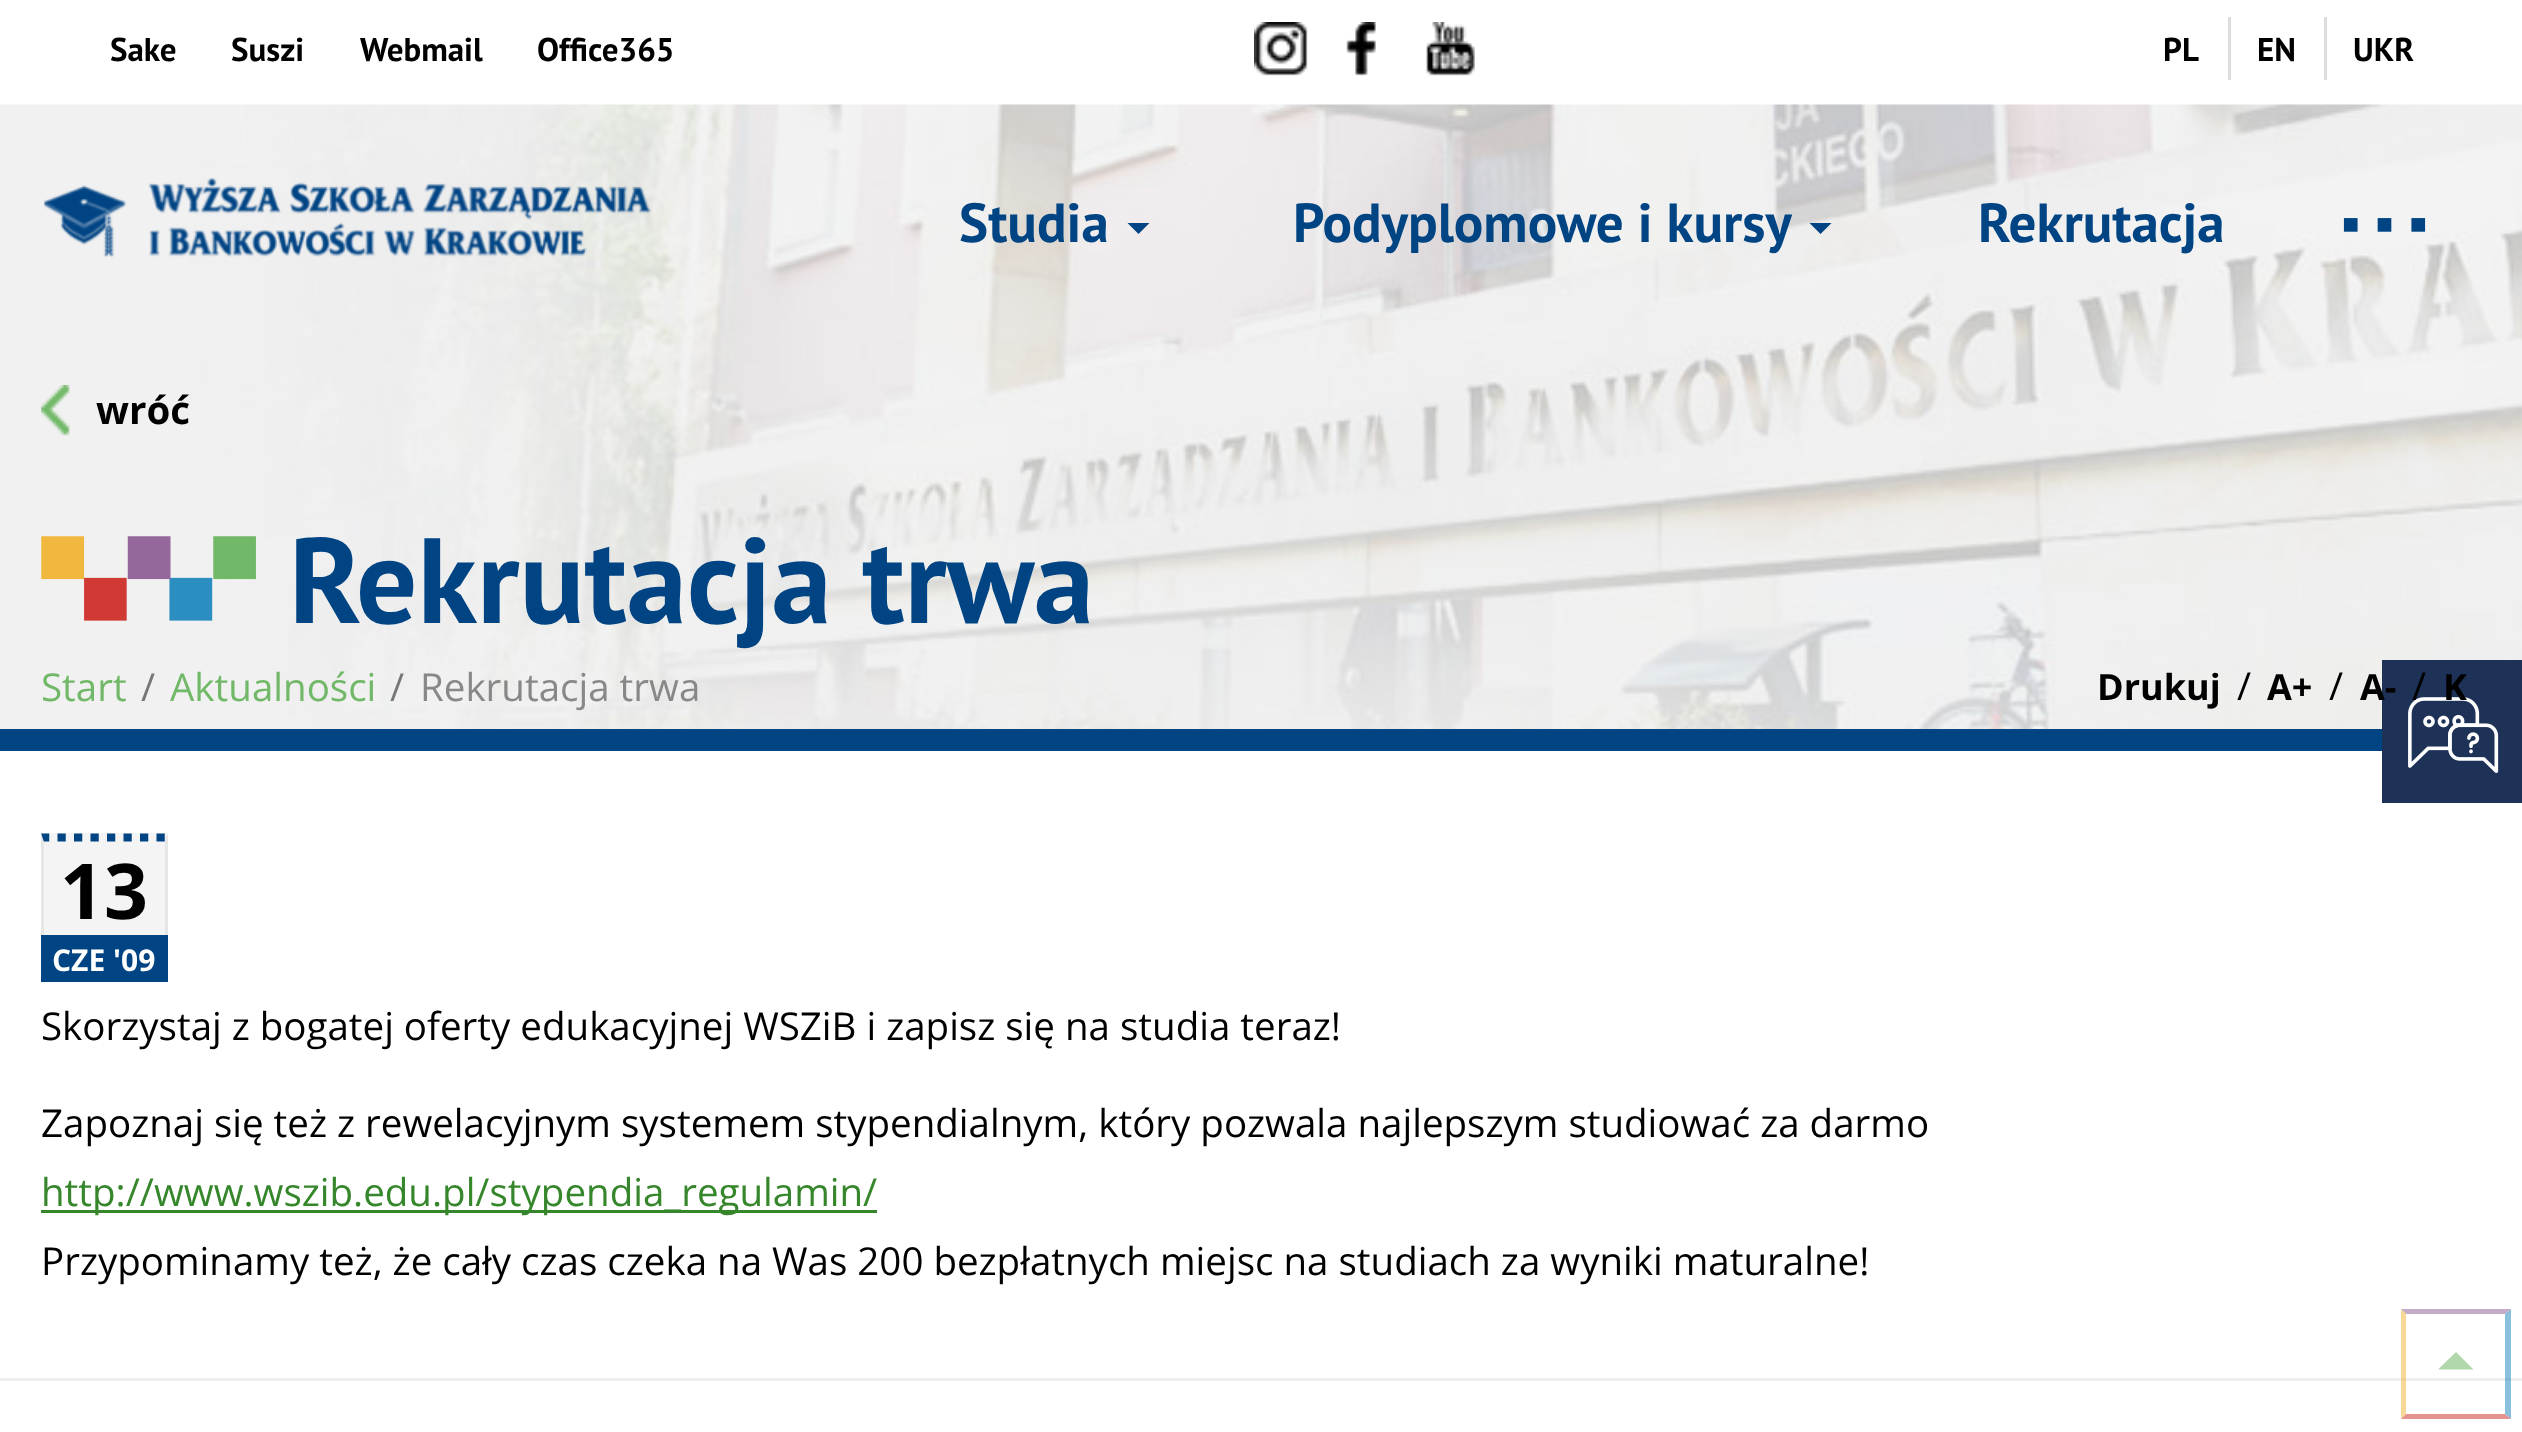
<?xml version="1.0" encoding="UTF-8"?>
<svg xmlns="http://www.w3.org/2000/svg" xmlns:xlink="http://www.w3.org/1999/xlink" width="2522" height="1432">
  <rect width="100%" height="100%" fill="#ffffff" />
  <image x="1254" y="22" width="54" height="54" xlink:href="image1.png" />
  <image x="1346" y="22" width="30" height="54" xlink:href="image2.png" />
  <image x="1426" y="22" width="49" height="54" xlink:href="image3.png" />
  <rect x="2228" y="17" width="3" height="63" fill="#dddddd" />
  <rect x="2324" y="17" width="3" height="63" fill="#dddddd" />
  <image x="0" y="104" width="2522" height="625" xlink:href="image5.png" />
  <image x="44" y="178" width="608" height="79" xlink:href="image4.png" />
  <path d="M 1127.5 223 h 22 l -11 11 z" fill="#004484" />
  <path d="M 1809.5 223 h 22 l -11 11 z" fill="#004484" />
  <rect y="729" width="2382" height="22" fill="#004484" />
  <image x="41" y="385" width="29" height="51" xlink:href="image6.png" />
  <image x="41" y="536" width="215" height="85" xlink:href="image7.png" />
  <rect x="41" y="833" width="127" height="102" fill="#f4f4f4" />
  <path d="M 41 837.5 h 127" fill="none" stroke="#004484" stroke-width="8.2" stroke-dasharray="8.25 8.25" />
  <path d="M 168 833 v 102 h -3 v -93 z" fill="#e6e6e6" />
  <path d="M 41 935 v -102 l 3 9 v 93 z" fill="#e6e6e6" />
  <rect x="41" y="935" width="127" height="47" fill="#004484" />
  <rect x="41" y="1210" width="836" height="3" fill="#36862b" />
  <rect y="1378" width="2522" height="3" fill="#eeeeee" />
  <rect x="2382" y="660" width="140" height="143" fill="#1d3256" />
  <image x="2408" y="697" width="91" height="76" xlink:href="image8.png" />
  <path d="M 2401 1309 h 110 l -6 5 h -99 z" fill="#c4acc8" />
  <path d="M 2511 1309 v 110 l -6 -5 v -100 z" fill="#2c8dc0" fill-opacity="0.55" />
  <path d="M 2511 1419 h -110 l 5 -5 h 99 z" fill="#cf3a34" fill-opacity="0.55" />
  <path d="M 2401 1419 v -110 l 5 5 v 100 z" fill="#f0b83f" fill-opacity="0.55" />
  <path d="M 2456 1352 l 17.5 17.5 h -35.5 z" fill="#b1d8ac" />
  <text x="110" y="61" style="font-family: PT Sans; font-size: 33px; font-weight: bold; fill: #000000">Sake</text>
  <text x="231" y="61" style="font-family: PT Sans; font-size: 33px; font-weight: bold; fill: #000000">Suszi</text>
  <text x="360" y="61" style="font-family: PT Sans; font-size: 33px; font-weight: bold; fill: #000000">Webmail</text>
  <text x="537" y="61" style="font-family: PT Sans; font-size: 33px; font-weight: bold; fill: #000000">Office365</text>
  <text x="2163" y="61" style="font-family: PT Sans; font-size: 33px; font-weight: bold; fill: #000000">PL</text>
  <text x="2257" y="61" style="font-family: PT Sans; font-size: 33px; font-weight: bold; fill: #000000">EN</text>
  <text x="2353" y="61" style="font-family: PT Sans; font-size: 33px; font-weight: bold; fill: #000000">UKR</text>
  <text x="959" y="242" style="font-family: PT Sans; font-size: 55px; font-weight: bold; fill: #004484">Studia</text>
  <text x="1293" y="242" style="font-family: PT Sans; font-size: 55px; font-weight: bold; fill: #004484">Podyplomowe i kursy</text>
  <text x="1978" y="242" style="font-family: PT Sans; font-size: 55px; font-weight: bold; fill: #004484">Rekrutacja</text>
  <text x="2341" y="242" word-spacing="-1" style="font-family: Liberation Sans; font-size: 55px; font-weight: bold; fill: #004484">▪ ▪ ▪</text>
  <text x="96" y="424" style="font-family: Open Sans; font-size: 38.5px; font-weight: bold; fill: #000000">wróć</text>
  <text x="289" y="623" style="font-family: PT Sans; font-size: 121px; font-weight: bold; fill: #004484">Rekrutacja trwa</text>
  <text x="41" y="701" style="font-family: Open Sans; font-size: 38.5px; fill: #71b868">Start</text>
  <text x="141" y="701" style="font-family: Open Sans; font-size: 38.5px; fill: #777777">/</text>
  <text x="170" y="701" style="font-family: Open Sans; font-size: 38.5px; fill: #71b868">Aktualności</text>
  <text x="390" y="701" style="font-family: Open Sans; font-size: 38.5px; fill: #777777">/</text>
  <text x="420" y="701" style="font-family: Open Sans; font-size: 38.5px; fill: #888888">Rekrutacja trwa</text>
  <text x="2097" y="700" style="font-family: Open Sans; font-size: 36px; font-weight: bold; fill: #000000">Drukuj</text>
  <text x="2237" y="700" style="font-family: Open Sans; font-size: 38.5px; fill: #000000">/</text>
  <text x="2267" y="700" style="font-family: Open Sans; font-size: 36px; font-weight: bold; fill: #000000">A+</text>
  <text x="2329" y="700" style="font-family: Open Sans; font-size: 38.5px; fill: #000000">/</text>
  <text x="2360" y="700" style="font-family: Open Sans; font-size: 36px; font-weight: bold; fill: #000000">A-</text>
  <text x="2412" y="700" style="font-family: Open Sans; font-size: 38.5px; fill: #000000">/</text>
  <text x="2443" y="700" style="font-family: Open Sans; font-size: 36px; font-weight: bold; fill: #000000">K</text>
  <text x="60" y="919" style="font-family: Open Sans; font-size: 77px; font-weight: bold; fill: #000000">13</text>
  <text x="52" y="971" style="font-family: Open Sans; font-size: 30px; font-weight: bold; fill: #ffffff">CZE '09</text>
  <text x="41" y="1040" style="font-family: Open Sans; font-size: 38.5px; fill: #000000">Skorzystaj z bogatej oferty edukacyjnej WSZiB i zapisz się na studia teraz!</text>
  <text x="41" y="1137" style="font-family: Open Sans; font-size: 38.5px; fill: #000000">Zapoznaj się też z rewelacyjnym systemem stypendialnym, który pozwala najlepszym studiować za darmo</text>
  <text x="41" y="1206" style="font-family: Open Sans; font-size: 38.5px; fill: #36862b">http://www.wszib.edu.pl/stypendia_regulamin/</text>
  <text x="41" y="1275" style="font-family: Open Sans; font-size: 38.5px; fill: #000000">Przypominamy też, że cały czas czeka na Was 200 bezpłatnych miejsc na studiach za wyniki maturalne!</text>
</svg>
